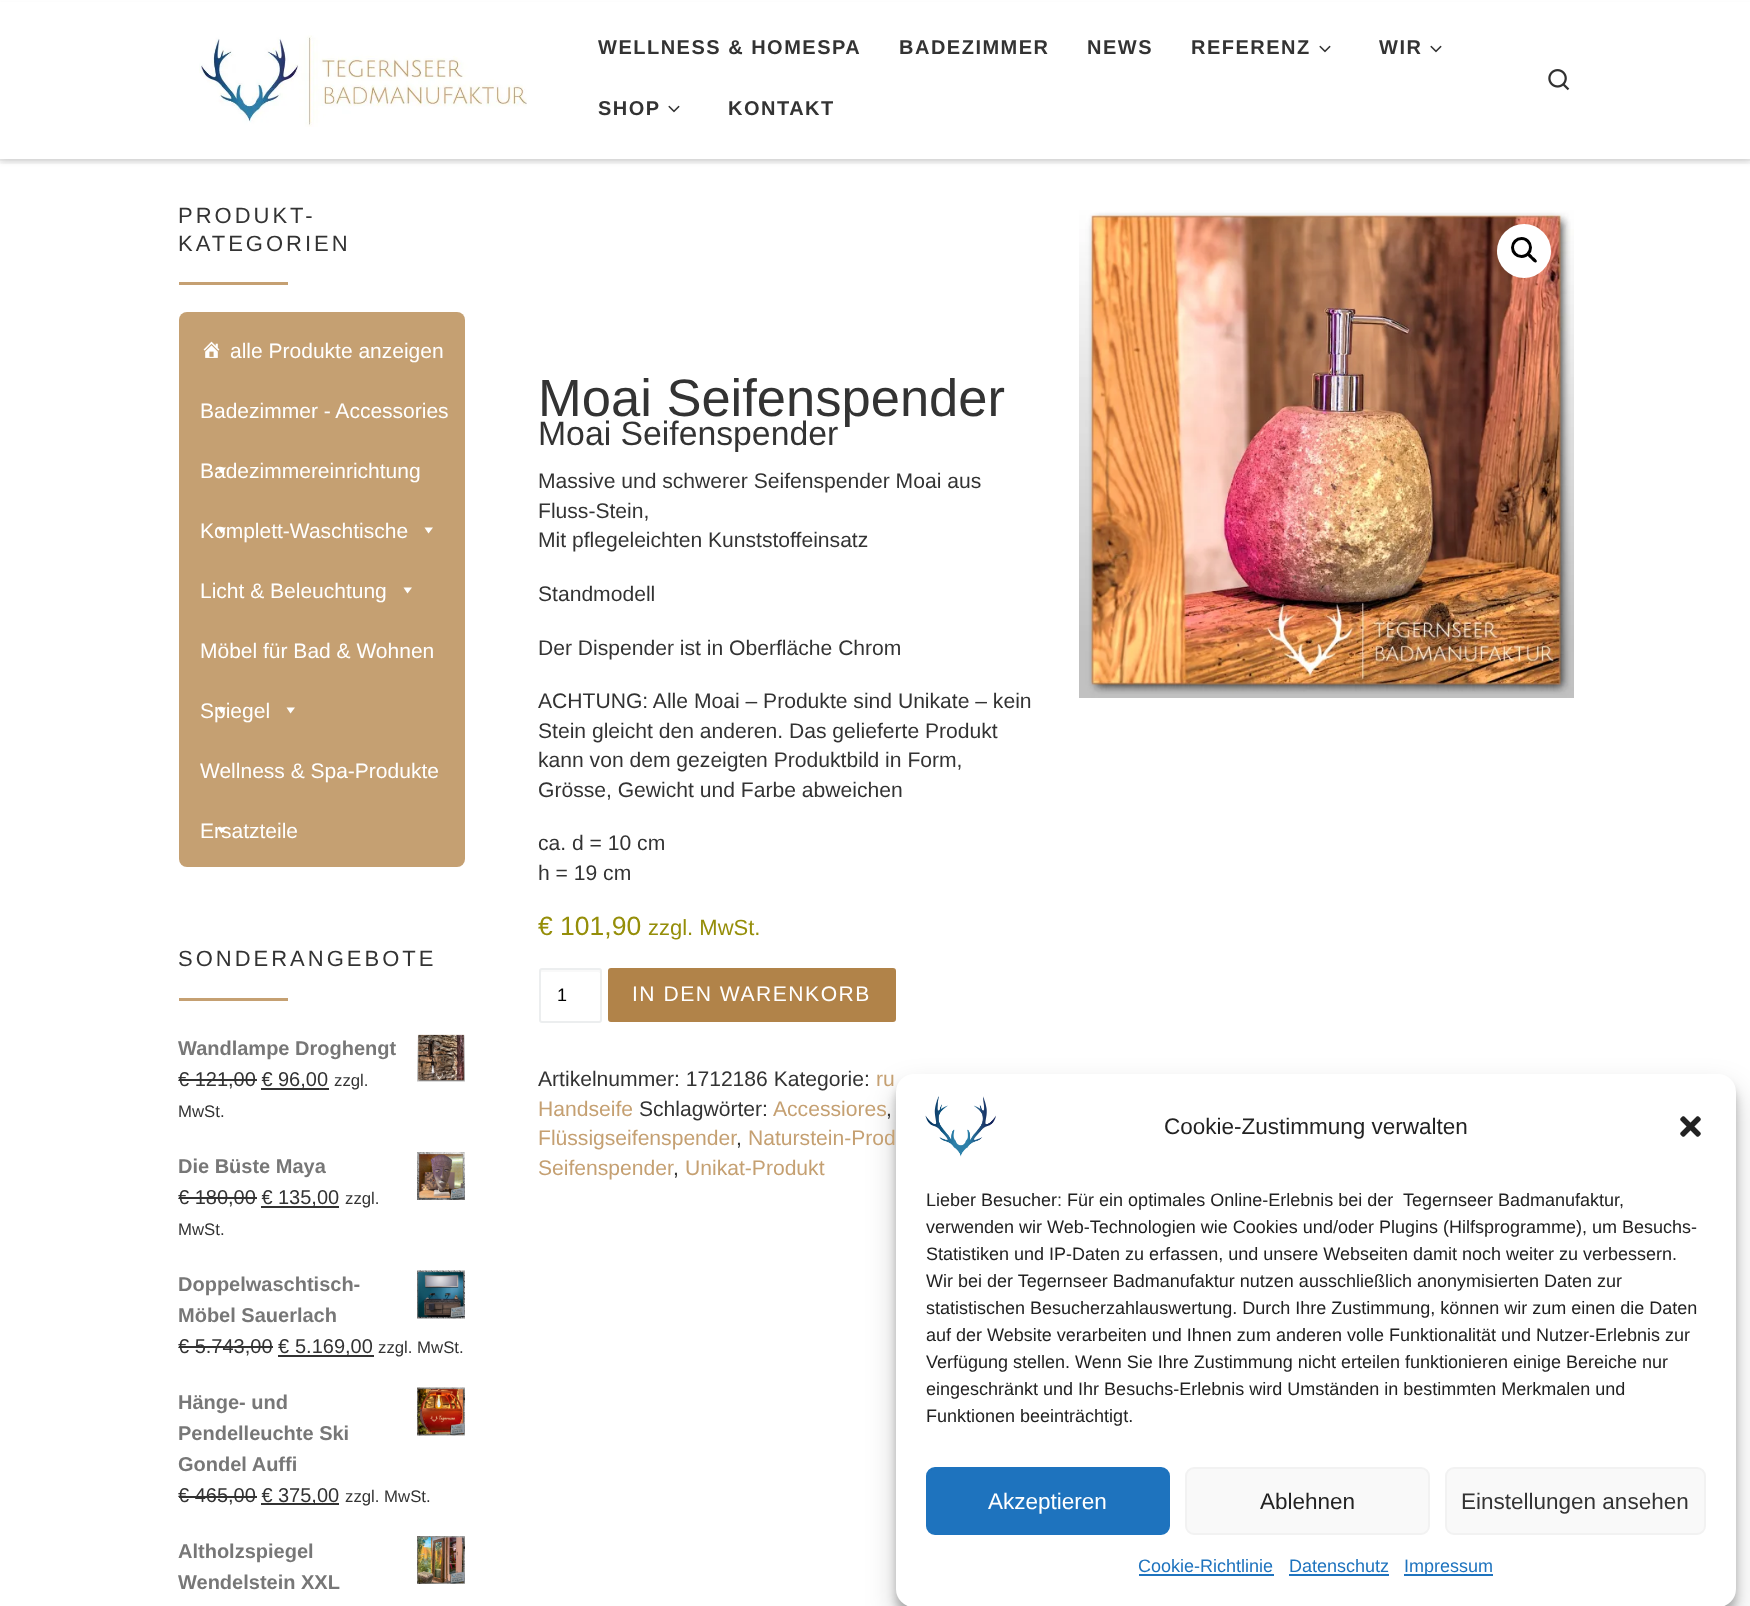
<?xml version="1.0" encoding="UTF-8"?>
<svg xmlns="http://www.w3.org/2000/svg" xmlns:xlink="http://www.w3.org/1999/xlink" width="1750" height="1606">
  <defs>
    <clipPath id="clip1"><rect x="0" y="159" width="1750" height="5" /></clipPath>
  </defs>
  <rect width="100%" height="100%" fill="#ffffff" />
  <rect y="3" width="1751" height="161" fill="#666666" fill-opacity="0.08" filter="blur(1.5px)" />
  <rect y="2" width="1750" height="157" fill="#ffffff" />
  <path d="M 0 159 v 2 h 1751 v -159 h -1 v 157 z" fill="#efefef" />
  <g clip-path="url(#clip1)">
    <rect width="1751" height="159" fill="#000000" fill-opacity="0.2" filter="blur(4px)" />
  </g>
  <image x="199" y="35" width="328" height="92" xlink:href="image1.png" />
  <image x="1319" y="45" width="12" height="8" xlink:href="image2.png" />
  <image x="1430" y="45" width="12" height="8" xlink:href="image2.png" />
  <image x="668" y="105" width="12" height="8" xlink:href="image2.png" />
  <image x="1548" y="69" width="22" height="22" xlink:href="image3.png" />
  <rect x="179" y="282" width="109" height="3" fill="#c5a072" />
  <rect x="179" y="312" width="286" height="555" rx="8" fill="#c5a072" />
  <image x="203" y="341" width="17" height="17" xlink:href="image4.png" />
  <path d="M 226 467.5 l -4.5 6 l -4 -6 z" fill="#ffffff" />
  <path d="M 226 527.5 l -4.5 6 l -4 -6 z" fill="#ffffff" />
  <path d="M 433 527.5 l -4.5 6 l -4 -6 z" fill="#ffffff" />
  <path d="M 412 587.5 l -4.5 6 l -4 -6 z" fill="#ffffff" />
  <path d="M 226 707.5 l -4.5 6 l -4 -6 z" fill="#ffffff" />
  <path d="M 295 707.5 l -4.5 6 l -4 -6 z" fill="#ffffff" />
  <path d="M 226 827.5 l -4.5 6 l -4 -6 z" fill="#ffffff" />
  <rect x="179" y="998" width="109" height="3" fill="#c5a072" />
  <image x="417" y="1034" width="48" height="48" xlink:href="image5.png" />
  <rect x="179" y="1079" width="78" height="2" fill="#333333" />
  <rect x="261" y="1088" width="68" height="2" fill="#333333" />
  <image x="417" y="1152" width="48" height="48" xlink:href="image6.png" />
  <rect x="179" y="1197" width="78" height="2" fill="#333333" />
  <rect x="261" y="1206" width="78" height="2" fill="#333333" />
  <image x="417" y="1270" width="48" height="49" xlink:href="image7.png" />
  <rect x="179" y="1346" width="94" height="2" fill="#333333" />
  <rect x="278" y="1355" width="96" height="2" fill="#333333" />
  <image x="417" y="1387" width="48" height="49" xlink:href="image8.png" />
  <rect x="179" y="1496" width="78" height="2" fill="#333333" />
  <rect x="261" y="1503" width="78" height="2" fill="#333333" />
  <image x="417" y="1536" width="48" height="48" xlink:href="image9.png" />
  <path d="M 542 972 h 56 c 1 0 2 1 2 2 c 0 -8 -1 -5 -11 -5 h -38 c -10 0 -11 -3 -11 5 c 0 -1 1 -2 2 -2 z" fill="#f9f9f9" />
  <rect x="540" y="969" width="61" height="53" rx="2" fill="none" stroke="#eceeef" stroke-width="2" />
  <rect x="609.5" y="969.5" width="285" height="51" rx="1.5" fill="#b18349" stroke="#b18349" stroke-width="3" />
  <image x="1079" y="210" width="495" height="488" xlink:href="image10.png" />
  <circle cx="1524" cy="251" r="27" fill="#ffffff" />
  <circle cx="1521.5" cy="247.5" r="9" fill="none" stroke="#000000" stroke-width="3" />
  <path d="M 1528 253.5 c 1.5 -1.5 4.5 2.5 5 3.5 c 1 0.5 5 3.5 3.5 5 c -2 2 -4.5 -2 -5.5 -3 c -1 -1 -5 -3.5 -3 -5.5 z" fill="#000000" />
  <rect x="896" y="1083" width="840" height="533" rx="18" fill="#000000" fill-opacity="0.23" filter="blur(4.5px)" />
  <rect x="896" y="1089" width="840" height="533" rx="18" fill="#000000" fill-opacity="0.19" filter="blur(15px)" />
  <rect x="896" y="1074" width="840" height="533" rx="18" fill="#ffffff" />
  <image x="925" y="1096" width="71" height="61" xlink:href="image11.png" />
  <image x="1680" y="1116" width="21" height="21" xlink:href="image12.png" />
  <rect x="927" y="1468" width="242" height="66" rx="8" fill="#1e73be" stroke="#1e73be" stroke-width="2" />
  <rect x="1186" y="1468" width="243" height="66" rx="8" fill="#f9f9f9" stroke="#f2f2f2" stroke-width="2" />
  <rect x="1446" y="1468" width="259" height="66" rx="8" fill="#f9f9f9" stroke="#f2f2f2" stroke-width="2" />
  <rect x="1139" y="1574" width="135" height="2" fill="#1e73be" />
  <rect x="1289" y="1574" width="100" height="2" fill="#1e73be" />
  <rect x="1404" y="1574" width="89" height="2" fill="#1e73be" />
  <text x="598" y="54" style="font-family: Liberation Sans; font-size: 20px; font-weight: bold; letter-spacing: 1.5px; fill: #333333">WELLNESS &amp; HOMESPA</text>
  <text x="899" y="54" style="font-family: Liberation Sans; font-size: 20px; font-weight: bold; letter-spacing: 1.5px; fill: #333333">BADEZIMMER</text>
  <text x="1087" y="54" style="font-family: Liberation Sans; font-size: 20px; font-weight: bold; letter-spacing: 1.5px; fill: #333333">NEWS</text>
  <text x="1191" y="54" style="font-family: Liberation Sans; font-size: 20px; font-weight: bold; letter-spacing: 1.5px; fill: #333333">REFERENZ</text>
  <text x="1379" y="54" style="font-family: Liberation Sans; font-size: 20px; font-weight: bold; letter-spacing: 1.5px; fill: #333333">WIR</text>
  <text x="598" y="115" style="font-family: Liberation Sans; font-size: 20px; font-weight: bold; letter-spacing: 1.5px; fill: #333333">SHOP</text>
  <text x="728" y="115" style="font-family: Liberation Sans; font-size: 20px; font-weight: bold; letter-spacing: 1.5px; fill: #333333">KONTAKT</text>
  <text x="178" y="223" style="font-family: Liberation Sans; font-size: 22px; letter-spacing: 3px; fill: #333333">PRODUKT-</text>
  <text x="178" y="251" style="font-family: Liberation Sans; font-size: 22px; letter-spacing: 3px; fill: #333333">KATEGORIEN</text>
  <text x="230" y="358" style="font-family: Liberation Sans; font-size: 21px; fill: #ffffff">alle Produkte anzeigen</text>
  <text x="200" y="418" style="font-family: Liberation Sans; font-size: 21px; fill: #ffffff">Badezimmer - Accessories</text>
  <text x="200" y="478" style="font-family: Liberation Sans; font-size: 21px; fill: #ffffff">Badezimmereinrichtung</text>
  <text x="200" y="538" style="font-family: Liberation Sans; font-size: 21px; fill: #ffffff">Komplett-Waschtische</text>
  <text x="200" y="598" style="font-family: Liberation Sans; font-size: 21px; fill: #ffffff">Licht &amp; Beleuchtung</text>
  <text x="200" y="658" style="font-family: Liberation Sans; font-size: 21px; fill: #ffffff">Möbel für Bad &amp; Wohnen</text>
  <text x="200" y="718" style="font-family: Liberation Sans; font-size: 21px; fill: #ffffff">Spiegel</text>
  <text x="200" y="778" style="font-family: Liberation Sans; font-size: 21px; fill: #ffffff">Wellness &amp; Spa-Produkte</text>
  <text x="200" y="838" style="font-family: Liberation Sans; font-size: 21px; fill: #ffffff">Ersatzteile</text>
  <text x="178" y="966" style="font-family: Liberation Sans; font-size: 22px; letter-spacing: 3px; fill: #333333">SONDERANGEBOTE</text>
  <text x="178" y="1055" style="font-family: Liberation Sans; font-size: 20px; font-weight: bold; fill: #777777">Wandlampe Droghengt</text>
  <text x="178" y="1086" style="font-family: Liberation Sans; font-size: 20px; fill: #333333">€ 121,00 €</text>
  <text x="278" y="1086" style="font-family: Liberation Sans; font-size: 20px; fill: #333333">96,00</text>
  <text x="334" y="1086" style="font-family: Liberation Sans; font-size: 16.75px; fill: #333333">zzgl.</text>
  <text x="178" y="1117" style="font-family: Liberation Sans; font-size: 16.75px; fill: #333333">MwSt.</text>
  <text x="178" y="1173" style="font-family: Liberation Sans; font-size: 20px; font-weight: bold; fill: #777777">Die Büste Maya</text>
  <text x="178" y="1204" style="font-family: Liberation Sans; font-size: 20px; fill: #333333">€ 180,00 €</text>
  <text x="278" y="1204" style="font-family: Liberation Sans; font-size: 20px; fill: #333333">135,00</text>
  <text x="345" y="1204" style="font-family: Liberation Sans; font-size: 16.75px; fill: #333333">zzgl.</text>
  <text x="178" y="1235" style="font-family: Liberation Sans; font-size: 16.75px; fill: #333333">MwSt.</text>
  <text x="178" y="1291" style="font-family: Liberation Sans; font-size: 20px; font-weight: bold; fill: #777777">Doppelwaschtisch-</text>
  <text x="178" y="1322" style="font-family: Liberation Sans; font-size: 20px; font-weight: bold; fill: #777777">Möbel Sauerlach</text>
  <text x="178" y="1353" style="font-family: Liberation Sans; font-size: 20px; fill: #333333">€ 5.743,00 €</text>
  <text x="295" y="1353" style="font-family: Liberation Sans; font-size: 20px; fill: #333333">5.169,00</text>
  <text x="378" y="1353" style="font-family: Liberation Sans; font-size: 16.75px; fill: #333333">zzgl. MwSt.</text>
  <text x="178" y="1409" style="font-family: Liberation Sans; font-size: 20px; font-weight: bold; fill: #777777">Hänge- und</text>
  <text x="178" y="1440" style="font-family: Liberation Sans; font-size: 20px; font-weight: bold; fill: #777777">Pendelleuchte Ski</text>
  <text x="178" y="1471" style="font-family: Liberation Sans; font-size: 20px; font-weight: bold; fill: #777777">Gondel Auffi</text>
  <text x="178" y="1502" style="font-family: Liberation Sans; font-size: 20px; fill: #333333">€ 465,00 €</text>
  <text x="278" y="1502" style="font-family: Liberation Sans; font-size: 20px; fill: #333333">375,00</text>
  <text x="345" y="1502" style="font-family: Liberation Sans; font-size: 16.75px; fill: #333333">zzgl. MwSt.</text>
  <text x="178" y="1558" style="font-family: Liberation Sans; font-size: 20px; font-weight: bold; fill: #777777">Altholzspiegel</text>
  <text x="178" y="1589" style="font-family: Liberation Sans; font-size: 20px; font-weight: bold; fill: #777777">Wendelstein XXL</text>
  <text x="538" y="416" style="font-family: Liberation Sans; font-size: 52.5px; fill: #333333">Moai Seifenspender</text>
  <text x="538" y="445" style="font-family: Liberation Sans; font-size: 33.75px; fill: #333333">Moai Seifenspender</text>
  <text x="538" y="488" style="font-family: Liberation Sans; font-size: 21.1px; fill: #333333">Massive und schwerer Seifenspender Moai aus</text>
  <text x="538" y="518" style="font-family: Liberation Sans; font-size: 21.1px; fill: #333333">Fluss-Stein,</text>
  <text x="538" y="547" style="font-family: Liberation Sans; font-size: 21.1px; fill: #333333">Mit pflegeleichten Kunststoffeinsatz</text>
  <text x="538" y="601" style="font-family: Liberation Sans; font-size: 21.1px; fill: #333333">Standmodell</text>
  <text x="538" y="655" style="font-family: Liberation Sans; font-size: 21.1px; fill: #333333">Der Dispender ist in Oberfläche Chrom</text>
  <text x="538" y="708" style="font-family: Liberation Sans; font-size: 21.1px; fill: #333333">ACHTUNG: Alle Moai – Produkte sind Unikate – kein</text>
  <text x="538" y="738" style="font-family: Liberation Sans; font-size: 21.1px; fill: #333333">Stein gleicht den anderen. Das gelieferte Produkt</text>
  <text x="538" y="767" style="font-family: Liberation Sans; font-size: 21.1px; fill: #333333">kann von dem gezeigten Produktbild in Form,</text>
  <text x="538" y="797" style="font-family: Liberation Sans; font-size: 21.1px; fill: #333333">Grösse, Gewicht und Farbe abweichen</text>
  <text x="538" y="850" style="font-family: Liberation Sans; font-size: 21.1px; fill: #333333">ca. d = 10 cm</text>
  <text x="538" y="880" style="font-family: Liberation Sans; font-size: 21.1px; fill: #333333">h = 19 cm</text>
  <text x="538" y="935" style="font-family: Liberation Sans; font-size: 26.5px; fill: #958e09">€ 101,90</text>
  <text x="648" y="935" style="font-family: Liberation Sans; font-size: 22px; fill: #958e09">zzgl. MwSt.</text>
  <text x="557" y="1001" style="font-family: Liberation Sans; font-size: 18px; fill: #000000">1</text>
  <text x="632" y="1001" style="font-family: Liberation Sans; font-size: 21.1px; letter-spacing: 1.5px; fill: #ffffff">IN DEN WARENKORB</text>
  <text x="538" y="1086" style="font-family: Liberation Sans; font-size: 21.1px; fill: #333333">Artikelnummer: 1712186 Kategorie:</text>
  <text x="876" y="1086" style="font-family: Liberation Sans; font-size: 21.1px; fill: #c5a072">ru</text>
  <text x="538" y="1116" style="font-family: Liberation Sans; font-size: 21.1px; fill: #c5a072">Handseife</text>
  <text x="639" y="1116" style="font-family: Liberation Sans; font-size: 21.1px; fill: #333333">Schlagwörter:</text>
  <text x="773" y="1116" style="font-family: Liberation Sans; font-size: 21.1px; fill: #c5a072">Accessiores</text>
  <text x="886" y="1116" style="font-family: Liberation Sans; font-size: 21.1px; fill: #333333">,</text>
  <text x="538" y="1145" style="font-family: Liberation Sans; font-size: 21.1px; fill: #c5a072">Flüssigseifenspender</text>
  <text x="736" y="1145" style="font-family: Liberation Sans; font-size: 21.1px; fill: #333333">,</text>
  <text x="748" y="1145" style="font-family: Liberation Sans; font-size: 21.1px; fill: #c5a072">Naturstein-Prod</text>
  <text x="538" y="1175" style="font-family: Liberation Sans; font-size: 21.1px; fill: #c5a072">Seifenspender</text>
  <text x="673" y="1175" style="font-family: Liberation Sans; font-size: 21.1px; fill: #333333">,</text>
  <text x="685" y="1175" style="font-family: Liberation Sans; font-size: 21.1px; fill: #c5a072">Unikat-Produkt</text>
  <text x="1164" y="1134" style="font-family: Liberation Sans; font-size: 22.5px; fill: #222222">Cookie-Zustimmung verwalten</text>
  <text x="926" y="1206" style="font-family: Liberation Sans; font-size: 18px; fill: #222222" xml:space="preserve">Lieber Besucher: Für ein optimales Online-Erlebnis bei der  Tegernseer Badmanufaktur,</text>
  <text x="926" y="1233" style="font-family: Liberation Sans; font-size: 18px; fill: #222222">verwenden wir Web-Technologien wie Cookies und/oder Plugins (Hilfsprogramme), um Besuchs-</text>
  <text x="926" y="1260" style="font-family: Liberation Sans; font-size: 18px; fill: #222222">Statistiken und IP-Daten zu erfassen, und unsere Webseiten damit noch weiter zu verbessern.</text>
  <text x="926" y="1287" style="font-family: Liberation Sans; font-size: 18px; fill: #222222">Wir bei der Tegernseer Badmanufaktur nutzen ausschließlich anonymisierten Daten zur</text>
  <text x="926" y="1314" style="font-family: Liberation Sans; font-size: 18px; fill: #222222">statistischen Besucherzahlauswertung. Durch Ihre Zustimmung, können wir zum einen die Daten</text>
  <text x="926" y="1341" style="font-family: Liberation Sans; font-size: 18px; fill: #222222">auf der Website verarbeiten und Ihnen zum anderen volle Funktionalität und Nutzer-Erlebnis zur</text>
  <text x="926" y="1368" style="font-family: Liberation Sans; font-size: 18px; fill: #222222">Verfügung stellen. Wenn Sie Ihre Zustimmung nicht erteilen funktionieren einige Bereiche nur</text>
  <text x="926" y="1395" style="font-family: Liberation Sans; font-size: 18px; fill: #222222">eingeschränkt und Ihr Besuchs-Erlebnis wird Umständen in bestimmten Merkmalen und</text>
  <text x="926" y="1422" style="font-family: Liberation Sans; font-size: 18px; fill: #222222">Funktionen beeinträchtigt.</text>
  <text x="988" y="1509" style="font-family: Liberation Sans; font-size: 22.5px; fill: #ffffff">Akzeptieren</text>
  <text x="1260" y="1509" style="font-family: Liberation Sans; font-size: 22.5px; fill: #222222">Ablehnen</text>
  <text x="1461" y="1509" style="font-family: Liberation Sans; font-size: 22.5px; fill: #333333">Einstellungen ansehen</text>
  <text x="1138" y="1572" style="font-family: Liberation Sans; font-size: 18px; fill: #1e73be">Cookie-Richtlinie</text>
  <text x="1289" y="1572" style="font-family: Liberation Sans; font-size: 18px; fill: #1e73be">Datenschutz</text>
  <text x="1404" y="1572" style="font-family: Liberation Sans; font-size: 18px; fill: #1e73be">Impressum</text>
</svg>
